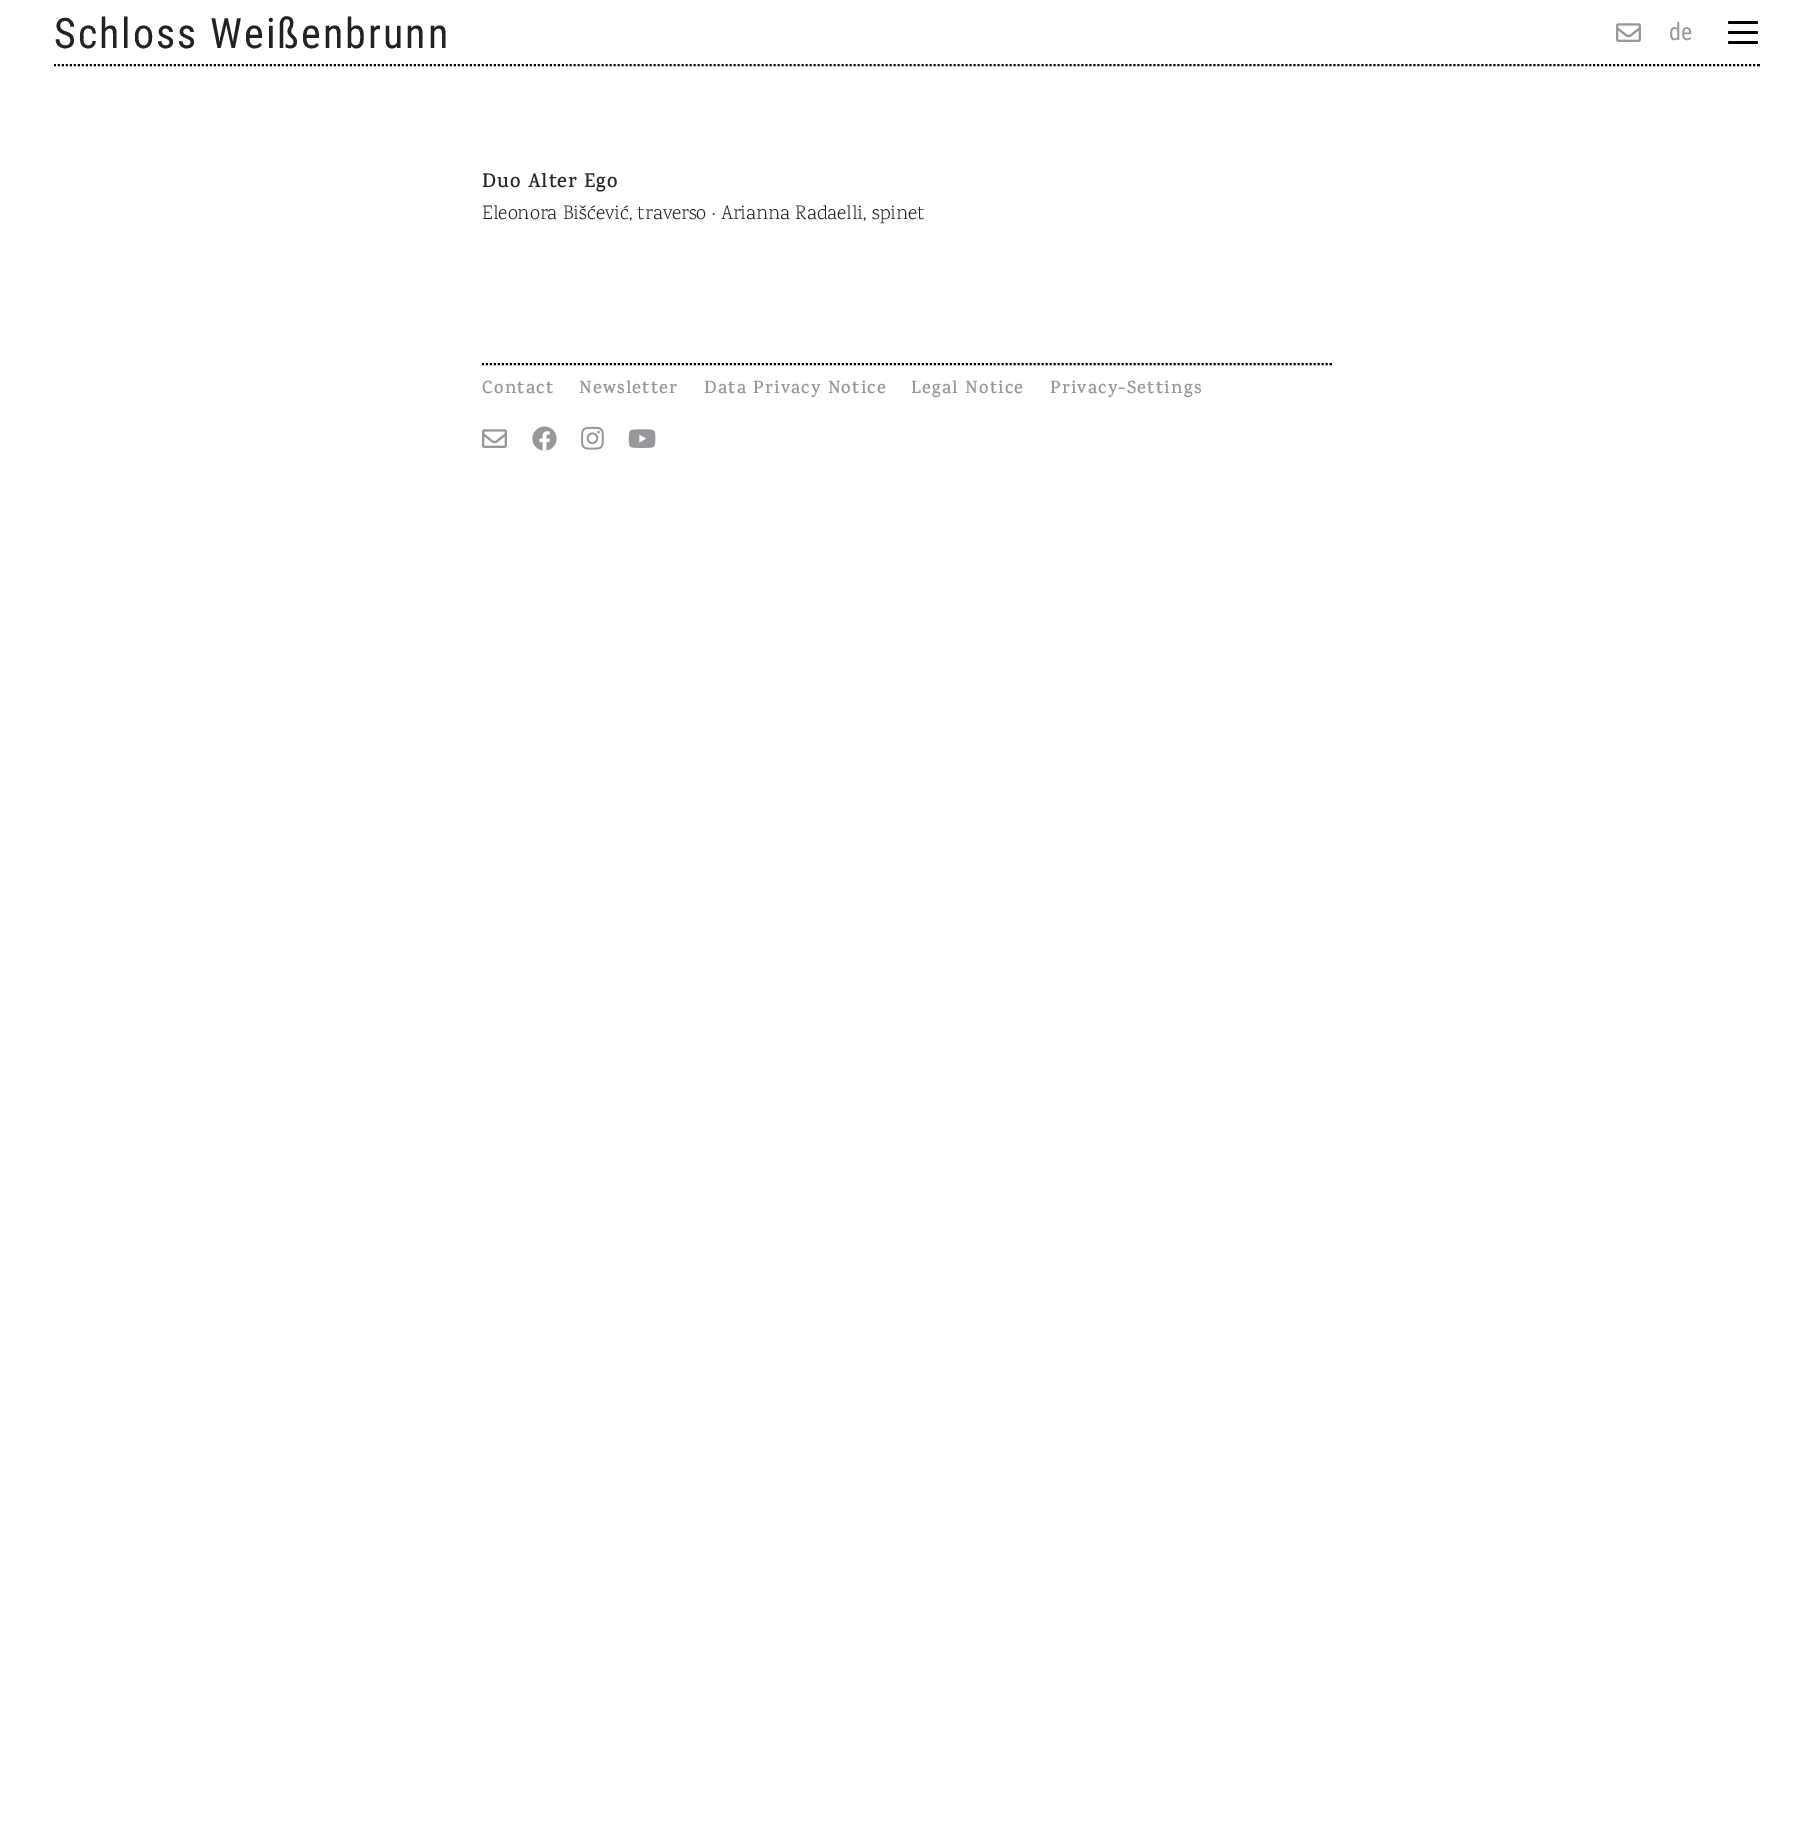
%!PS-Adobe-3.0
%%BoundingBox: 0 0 1814 1822
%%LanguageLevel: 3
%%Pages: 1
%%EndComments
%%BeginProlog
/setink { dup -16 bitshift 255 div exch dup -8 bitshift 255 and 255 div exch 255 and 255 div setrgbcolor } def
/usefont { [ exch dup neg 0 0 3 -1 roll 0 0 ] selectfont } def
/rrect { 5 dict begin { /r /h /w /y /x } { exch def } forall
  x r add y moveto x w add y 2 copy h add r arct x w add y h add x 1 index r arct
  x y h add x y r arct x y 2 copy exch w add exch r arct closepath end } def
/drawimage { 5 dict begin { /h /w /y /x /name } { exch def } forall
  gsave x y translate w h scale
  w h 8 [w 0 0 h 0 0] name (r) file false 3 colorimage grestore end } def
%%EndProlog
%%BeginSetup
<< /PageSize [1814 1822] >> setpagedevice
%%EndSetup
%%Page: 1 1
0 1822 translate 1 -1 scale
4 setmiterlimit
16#FFFFFF setink
0 0 1814 1822 rectfill
/RobotoCondensed-Regular 42 usefont
16#222222 setink
54 48 moveto 2 0 (Schloss Weißenbrunn) ashow
16#000000 setink
2 setlinewidth
[2 2] 0 setdash
54 65 moveto 1760 65 lineto stroke
(img1.raw) 1616 23 25 19 drawimage
/RobotoCondensed-Regular 24 usefont
16#99979C setink
1669 40 moveto (de) show
/Karma-SemiBold 20 usefont
16#24292E setink
482 187 moveto 1 0 (Duo Alter Ego) ashow
/Karma-Light 20 usefont
482 219 moveto (Eleonora Bišćević, traverso · Arianna Radaelli, spinet) show
16#000000 setink
1728 31 30 3 1.5 rrect fill
1728 21 30 3 1.5 rrect fill
1728 41 30 3 1.5 rrect fill
482 364 moveto 1332 364 lineto stroke
/Karma-SemiBold 18 usefont
16#99979C setink
482 393 moveto 1.25 0 (Contact) ashow
579 393 moveto 1.25 0 (Newsletter) ashow
704 393 moveto 1.25 0 (Data Privacy Notice) ashow
911 393 moveto 1.25 0 (Legal Notice) ashow
1050 393 moveto 1.25 0 (Privacy-Settings) ashow
(img1.raw) 482 429 25 19 drawimage
(img2.raw) 532 426 25 25 drawimage
(img3.raw) 581 426 23 24 drawimage
(img4.raw) 628 429 28 19 drawimage
showpage
%%EOF
